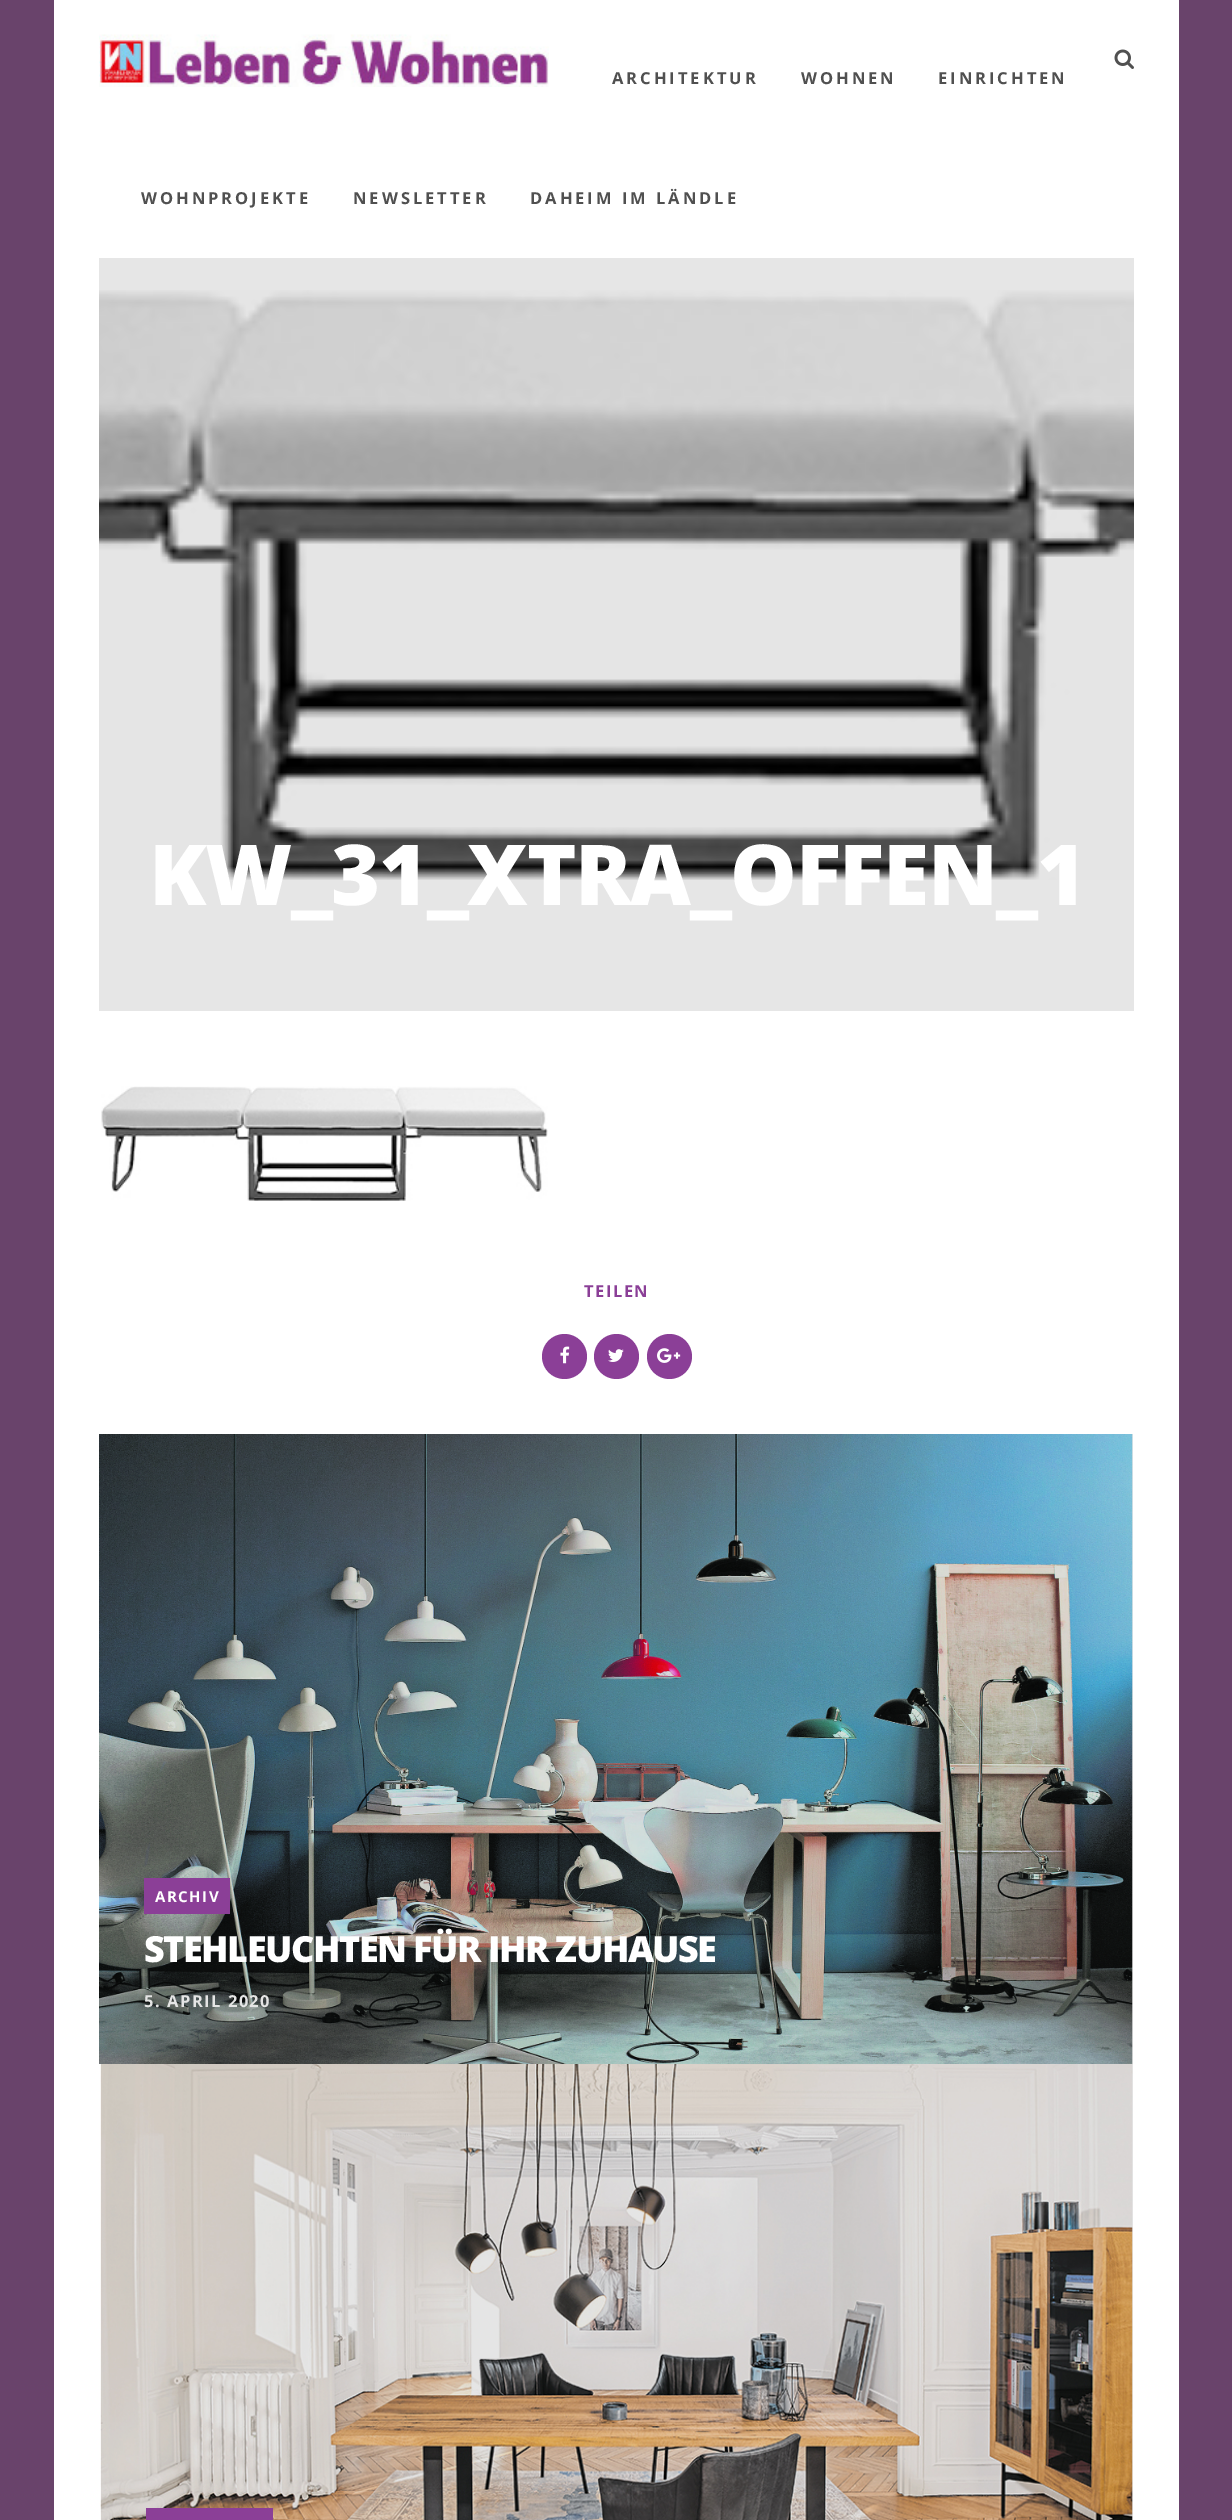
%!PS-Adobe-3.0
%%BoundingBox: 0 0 1232 2520
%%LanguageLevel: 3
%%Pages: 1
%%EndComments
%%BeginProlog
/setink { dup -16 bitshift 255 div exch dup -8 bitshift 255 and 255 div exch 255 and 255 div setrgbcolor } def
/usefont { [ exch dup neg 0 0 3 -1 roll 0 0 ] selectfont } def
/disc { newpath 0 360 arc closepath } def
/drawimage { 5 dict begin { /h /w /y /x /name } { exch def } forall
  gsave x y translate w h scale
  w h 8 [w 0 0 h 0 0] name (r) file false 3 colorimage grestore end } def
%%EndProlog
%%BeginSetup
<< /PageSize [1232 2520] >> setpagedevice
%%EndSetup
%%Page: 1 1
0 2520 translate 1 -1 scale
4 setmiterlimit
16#69436B setink
0 0 1232 2520 rectfill
16#FFFFFF setink
54 0 1125 2520 rectfill
(img1.raw) 99 34 450 53 drawimage
(img2.raw) 1114 49 20 20 drawimage
/OpenSans-Bold 16.5 usefont
16#505050 setink
612 84 moveto 3 0 (ARCHITEKTUR) ashow
801 84 moveto 3 0 (WOHNEN) ashow
938 84 moveto 3 0 (EINRICHTEN) ashow
141 204 moveto 3 0 (WOHNPROJEKTE) ashow
353 204 moveto 3 0 (NEWSLETTER) ashow
530 204 moveto 3 0 (DAHEIM IM LÄNDLE) ashow
16#E6E6E6 setink
1132 1434 1 1086 rectfill
99 258 1035 753 rectfill
(img3.raw) 99 290 1035 590 drawimage
/OpenSans-ExtraBold 84 usefont
16#FFFFFF setink
149 905 moveto -1.5 0 (KW_31_XTRA_OFFEN_1) ashow
(img4.raw) 101 1086 447 115 drawimage
/OpenSans-Bold 16.5 usefont
16#8B3F97 setink
584 1297 moveto 1.5 0 (TEILEN) ashow
564.5 1356.5 22.5 disc fill
(img5.raw) 560 1346 10 18 drawimage
616.5 1356.5 22.5 disc fill
(img6.raw) 608 1349 16 13 drawimage
669.5 1356.5 22.5 disc fill
(img7.raw) 657 1348 24 15 drawimage
(img8.raw) 99 1434 1034 630 drawimage
144 1878 86 36 rectfill
/OpenSans-Bold 15 usefont
16#FFFFFF setink
155 1902 moveto 1.5 0 (ARCHIV) ashow
/OpenSans-ExtraBold 36 usefont
144 1962 moveto -1.5 0 (STEHLEUCHTEN FÜR IHR ZUHAUSE) ashow
/OpenSans-Bold 16.5 usefont
16#E5E5E5 setink
144 2007 moveto 1.5 0 (5. APRIL 2020) ashow
(img9.raw) 100 2064 1033 456 drawimage
16#8B3F97 setink
146 2508 127 12 rectfill
showpage
%%EOF
